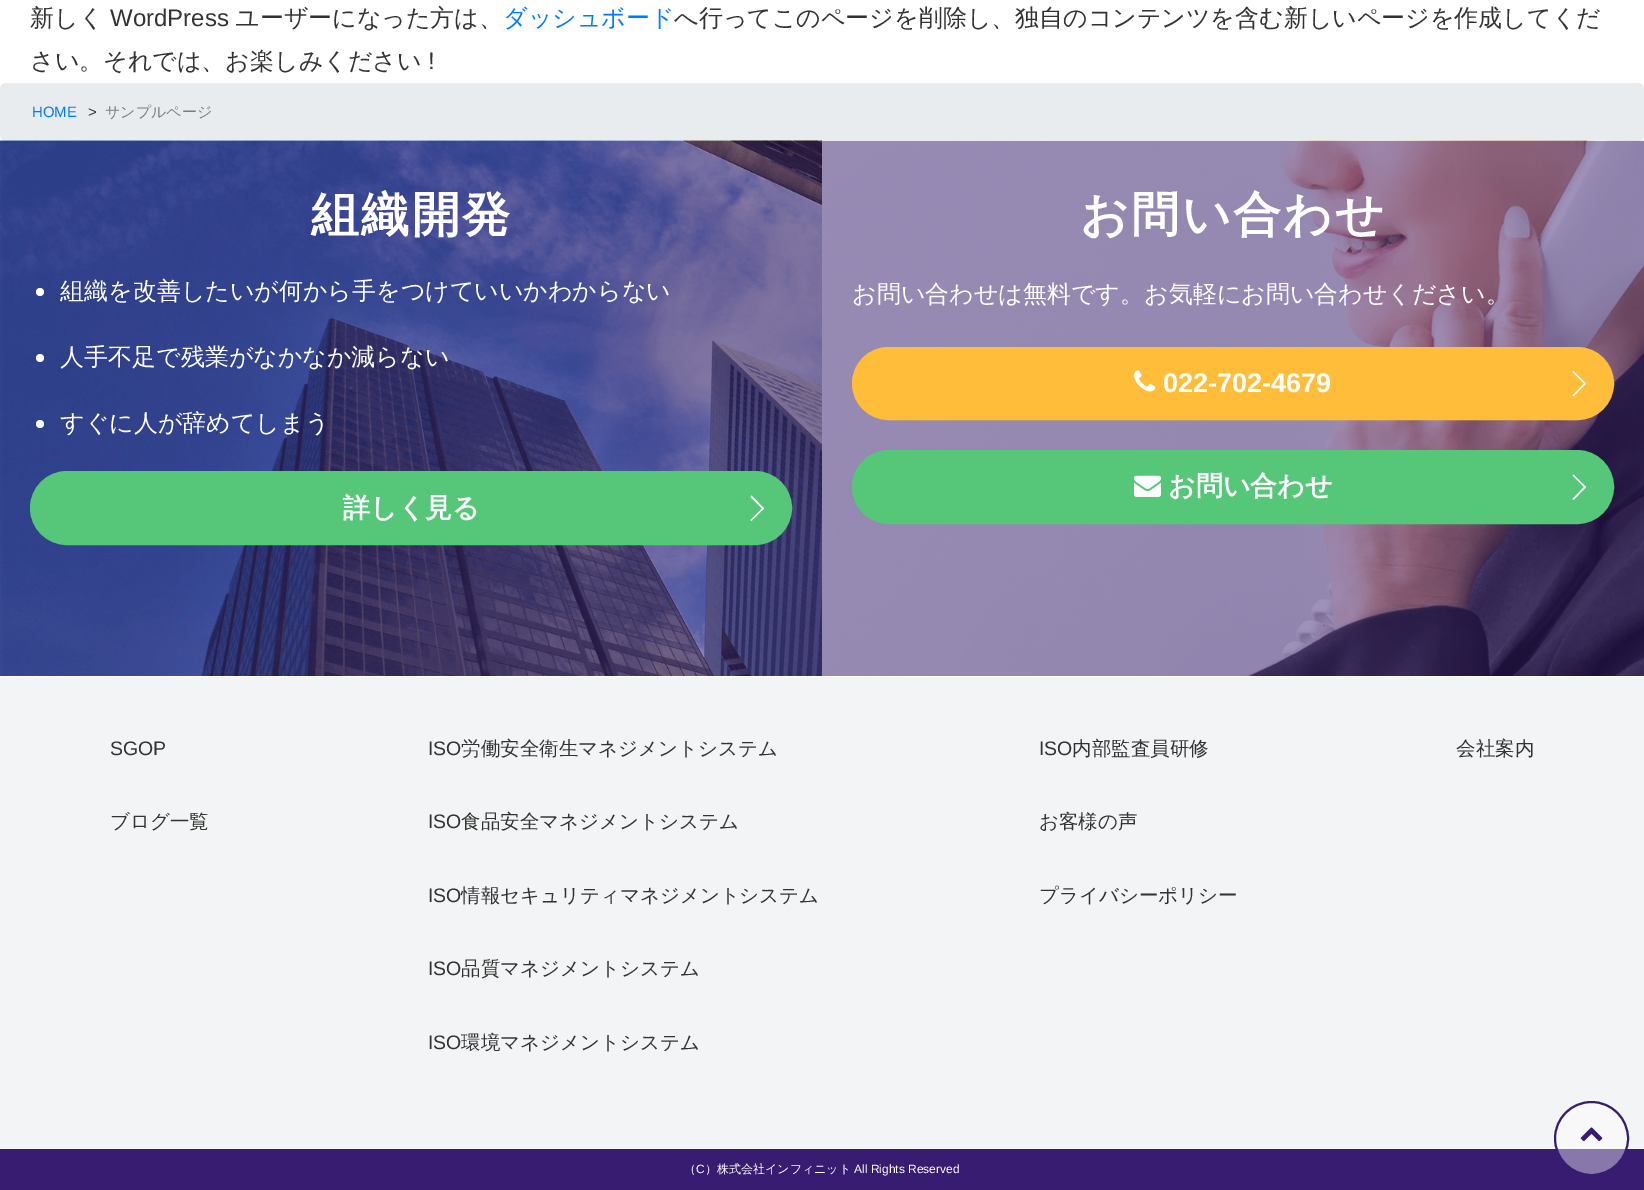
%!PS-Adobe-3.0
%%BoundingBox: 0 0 1644 1190
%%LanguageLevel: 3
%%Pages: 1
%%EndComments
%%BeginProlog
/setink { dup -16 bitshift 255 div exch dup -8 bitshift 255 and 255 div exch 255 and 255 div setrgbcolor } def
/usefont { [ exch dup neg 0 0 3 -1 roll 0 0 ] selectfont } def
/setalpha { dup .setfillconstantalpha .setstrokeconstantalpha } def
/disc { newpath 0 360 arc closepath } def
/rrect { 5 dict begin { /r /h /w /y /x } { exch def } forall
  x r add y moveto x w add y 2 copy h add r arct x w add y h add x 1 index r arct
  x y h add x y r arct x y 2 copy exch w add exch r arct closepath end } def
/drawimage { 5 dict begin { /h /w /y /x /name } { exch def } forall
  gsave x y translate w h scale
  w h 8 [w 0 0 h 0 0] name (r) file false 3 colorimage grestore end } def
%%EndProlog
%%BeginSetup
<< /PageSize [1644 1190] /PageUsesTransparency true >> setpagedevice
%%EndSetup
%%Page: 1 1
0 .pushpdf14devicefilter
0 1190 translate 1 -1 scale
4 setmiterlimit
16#FFFFFF setink
0 0 1644 1190 rectfill
/WenQuanYiZenHei-Medium 24 usefont
16#333333 setink
30 26 moveto (新しく) show
/LiberationSans-Regular 24 usefont
110 26 moveto (WordPress) show
/WenQuanYiZenHei-Medium 24 usefont
235 26 moveto (ユーザーになった方は、) show
16#007BFF setink
503 26 moveto (ダッシュボード) show
16#333333 setink
674 26 moveto (へ行ってこのページを削除し、独自のコンテンツを含む新しいページを作成してくだ) show
30 69 moveto (さい。それでは、お楽しみください) show
/LiberationSans-Regular 24 usefont
428 69 moveto (!) show
16#E9ECEF setink
0 83 1644 58 6 rrect fill
/LiberationSans-Regular 15 usefont
16#007BFF setink
32 117 moveto (HOME) show
16#333333 setink
88 117 moveto (>) show
/WenQuanYiZenHei-Medium 15 usefont
16#7B7B7B setink
105 117 moveto (サンプルページ) show
(img1.raw) 0 140 822 536 drawimage
/WenQuanYiZenHei-Bold 48 usefont
16#FFFFFF setink
311 231 moveto 2.25 0 (組織開発) ashow
40 292 4 disc fill
/WenQuanYiZenHei-Medium 24 usefont
60 299 moveto (組織を改善したいが何から手をつけていいかわからない) show
40 358 4 disc fill
60 365 moveto (人手不足で残業がなかなか減らない) show
40 424 4 disc fill
60 431 moveto (すぐに人が辞めてしまう) show
16#56C678 setink
31 472 760 72 36 rrect gsave fill grestore
2 setlinewidth
stroke
/WenQuanYiZenHei-Bold 27 usefont
16#FFFFFF setink
343 517 moveto (詳しく見る) show
751.5 495.5 moveto 764 508.5 lineto 763 509.5 lineto 750.5 497 lineto closepath fill
763 507.5 moveto 764 508.5 lineto 751.5 521 lineto 750.5 520 lineto closepath fill
(img2.raw) 822 140 822 536 drawimage
/WenQuanYiZenHei-Bold 48 usefont
1080 231 moveto 2.25 0 (お問い合わせ) ashow
/WenQuanYiZenHei-Medium 24 usefont
852 302 moveto (お問い合わせは無料です。お気軽にお問い合わせください。) show
16#FFBD39 setink
853 348 760 71 35.5 rrect gsave fill grestore
stroke
(img3.raw) 1134 370 22 22 drawimage
/LiberationSans-Bold 27 usefont
16#FFFFFF setink
1163 392 moveto (022-702-4679) show
1573.5 371 moveto 1586 383.5 lineto 1585 384.5 lineto 1572.5 372 lineto closepath fill
1585 382.5 moveto 1586 383.5 lineto 1573.5 396.5 lineto 1572.5 395.5 lineto closepath fill
16#56C678 setink
853 451 760 72 36 rrect gsave fill grestore
stroke
(img4.raw) 1134 475 27 22 drawimage
/WenQuanYiZenHei-Bold 27 usefont
16#FFFFFF setink
1168 495 moveto (お問い合わせ) show
1573.5 474.5 moveto 1586 487 lineto 1585 488 lineto 1572.5 475.5 lineto closepath fill
1585 486 moveto 1586 487 lineto 1573.5 500 lineto 1572.5 499 lineto closepath fill
16#F3F4F5 setink
0 677 1644 472 rectfill
/LiberationSans-Regular 19.5 usefont
16#333333 setink
110 755 moveto (SGOP) show
/WenQuanYiZenHei-Medium 19.5 usefont
110 828 moveto (ブログ一覧) show
/LiberationSans-Regular 19.5 usefont
428 755 moveto (ISO) show
/WenQuanYiZenHei-Medium 19.5 usefont
461 755 moveto (労働安全衛生マネジメントシステム) show
/LiberationSans-Regular 19.5 usefont
428 828 moveto (ISO) show
/WenQuanYiZenHei-Medium 19.5 usefont
461 828 moveto (食品安全マネジメントシステム) show
/LiberationSans-Regular 19.5 usefont
428 902 moveto (ISO) show
/WenQuanYiZenHei-Medium 19.5 usefont
461 902 moveto (情報セキュリティマネジメントシステム) show
/LiberationSans-Regular 19.5 usefont
428 975 moveto (ISO) show
/WenQuanYiZenHei-Medium 19.5 usefont
461 975 moveto (品質マネジメントシステム) show
/LiberationSans-Regular 19.5 usefont
428 1049 moveto (ISO) show
/WenQuanYiZenHei-Medium 19.5 usefont
461 1049 moveto (環境マネジメントシステム) show
/LiberationSans-Regular 19.5 usefont
1039 755 moveto (ISO) show
/WenQuanYiZenHei-Medium 19.5 usefont
[
    [(内部監査員研修) 1072 755]
    [(お客様の声) 1039 828]
    [(プライバシーポリシー) 1039 902]
    [(会社案内) 1456 755]
] { aload pop moveto show } forall
16#381C72 setink
0 1149 1644 41 rectfill
/WenQuanYiZenHei-Medium 12 usefont
16#FFFFFF setink
684 1173 moveto (（) show
/LiberationSans-Regular 12 usefont
696 1173 moveto (C) show
/WenQuanYiZenHei-Medium 12 usefont
705 1173 moveto (）株式会社インフィニット) show
/LiberationSans-Regular 12 usefont
854 1173 moveto (All Rights Reserved) show
0.4 setalpha
1591.5 1138.5 36.5 disc fill
1 setalpha
16#381C72 setink
1591.5 1138.5 36.5 disc stroke
(img5.raw) 1580 1127 23 15 drawimage
.poppdf14devicefilter showpage
%%EOF
